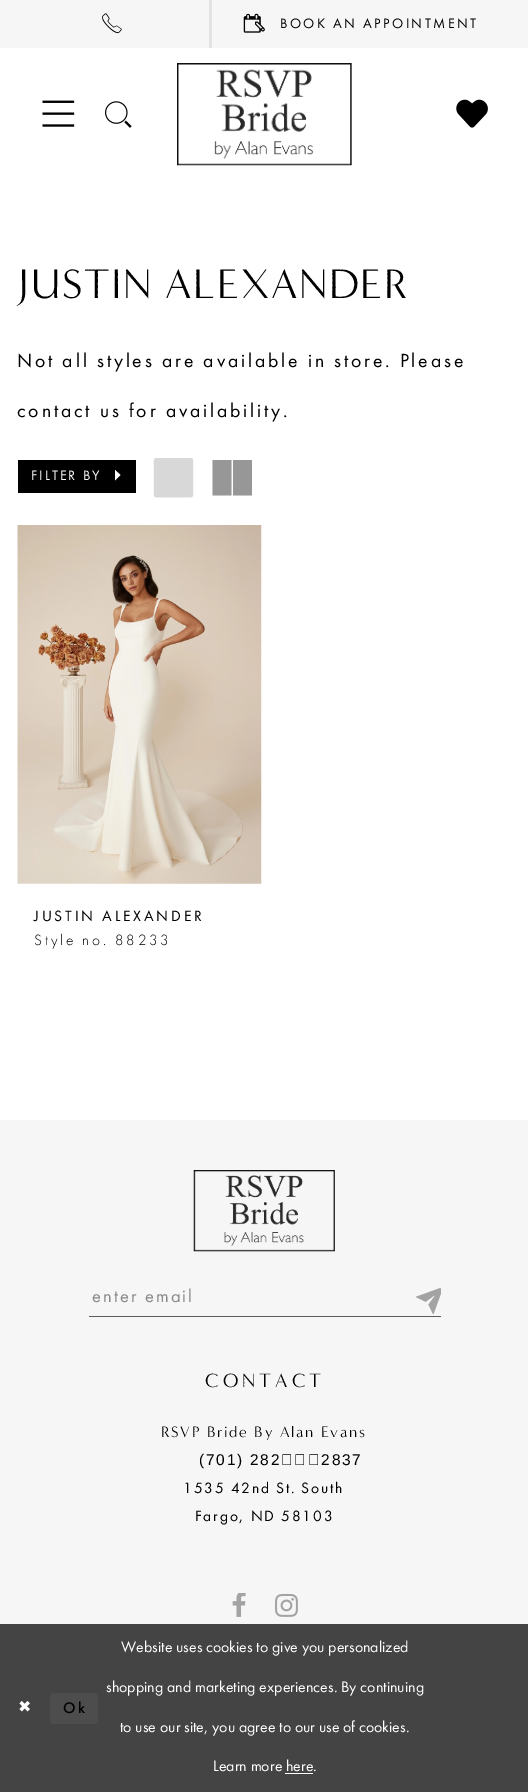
%!PS-Adobe-3.0
%%BoundingBox: 0 0 528 1792
%%LanguageLevel: 3
%%Pages: 1
%%EndComments
%%BeginProlog
/setink { dup -16 bitshift 255 div exch dup -8 bitshift 255 and 255 div exch 255 and 255 div setrgbcolor } def
/usefont { [ exch dup neg 0 0 3 -1 roll 0 0 ] selectfont } def
/rrect { 5 dict begin { /r /h /w /y /x } { exch def } forall
  x r add y moveto x w add y 2 copy h add r arct x w add y h add x 1 index r arct
  x y h add x y r arct x y 2 copy exch w add exch r arct closepath end } def
/drawimage { 5 dict begin { /h /w /y /x /name } { exch def } forall
  gsave x y translate w h scale
  w h 8 [w 0 0 h 0 0] name (r) file false 3 colorimage grestore end } def
%%EndProlog
%%BeginSetup
<< /PageSize [528 1792] >> setpagedevice
%%EndSetup
%%Page: 1 1
0 1792 translate 1 -1 scale
4 setmiterlimit
16#FFFFFF setink
0 0 528 1792 rectfill
16#F6F6F6 setink
0 0 528 48 rectfill
(img1.raw) 102 13 20 21 drawimage
16#E3E3E3 setink
209 0 3 48 rectfill
(img2.raw) 243 13 22 20 drawimage
/FuturaPT-Regular 14.1 usefont
16#000000 setink
280 28 moveto 2.4 0 (BOOK AN APPOINTMENT) ashow
(img3.raw) 42 100 33 27 drawimage
(img4.raw) 105 101 27 27 drawimage
(img5.raw) 177 63 175 103 drawimage
(img6.raw) 456 99 32 29 drawimage
/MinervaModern-Regular 42.25 usefont
17 298 moveto 1.6 0 (JUSTIN ALEXANDER) ashow
/FuturaPT-Regular 19.75 usefont
17 367 moveto 2.8 0 (Not all styles are available in store. Please) ashow
17 417 moveto 2.8 0 (contact us for availability.) ashow
18 460 118 33 rectfill
/FuturaPT-Regular 14.1 usefont
16#FFFFFF setink
31 480 moveto 2 0 (FILTER BY) ashow
115 470 moveto 120.5 475 lineto 115 480.5 lineto closepath fill
(img7.raw) 153 458 41 40 drawimage
16#979797 setink
212.5 460 moveto 231.5 460 lineto 231.5 495.5 lineto 212.5 495.5 lineto closepath 233 460 moveto 252 460 lineto 252 495.5 lineto 233 495.5 lineto closepath fill
(img8.raw) 17 525 245 359 drawimage
/FuturaPT-Regular 15.5 usefont
16#000000 setink
34 921 moveto 2.8 0 (JUSTIN ALEXANDER) ashow
/FuturaPT-Light 15.5 usefont
34 945 moveto 2.8 0 (Style no. 88233) ashow
16#F6F6F6 setink
0 1120 528 504 rectfill
(img9.raw) 193 1170 142 82 drawimage
16#5B5B5B setink
89 1316 352 1 rectfill
/FuturaPT-Regular 18.5 usefont
16#898989 setink
92 1302 moveto 2.1 0 (enter email) ashow
(img10.raw) 416 1288 25 26 drawimage
/MinervaModern-Regular 19.75 usefont
16#000000 setink
205 1387 moveto 4 0 (CONTACT) ashow
/MinervaModern-Regular 15.5 usefont
161 1437 moveto 1.75 0 (RSVP Bride By Alan Evans) ashow
/LiberationSans-Regular 15.5 usefont
199 1465 moveto 1.75 0 (\(701\) 282‑2837) ashow
/FuturaPT-Regular 15.5 usefont
183 1493 moveto 1.75 0 (1535 42nd St. South) ashow
195 1521 moveto 1.75 0 (Fargo, ND 58103) ashow
(img11.raw) 232 1593 14 24 drawimage
(img12.raw) 275 1593 23 24 drawimage
16#444444 setink
0 1624 528 168 rectfill
/DejaVuSans-Regular 15.9 usefont
16#FFFFFF setink
18 1712 moveto 2 0 (✖) ashow
16#4D4D4D setink
50 1693 48 31 4 rrect fill
/FuturaPT-Medium 15.9 usefont
16#000000 setink
63 1713 moveto 2 0 (Ok) ashow
/FuturaPT-Regular 15.9 usefont
16#FFFFFF setink
[
    [(Website uses cookies to give you personalized) 121 1652]
    [(shopping and marketing experiences. By continuing) 106 1692]
    [(to use our site, you agree to our use of cookies.) 120 1732]
    [(Learn more here.) 213 1771]
] { aload pop moveto show } forall
285 1773 28 1 rectfill
showpage
%%EOF
